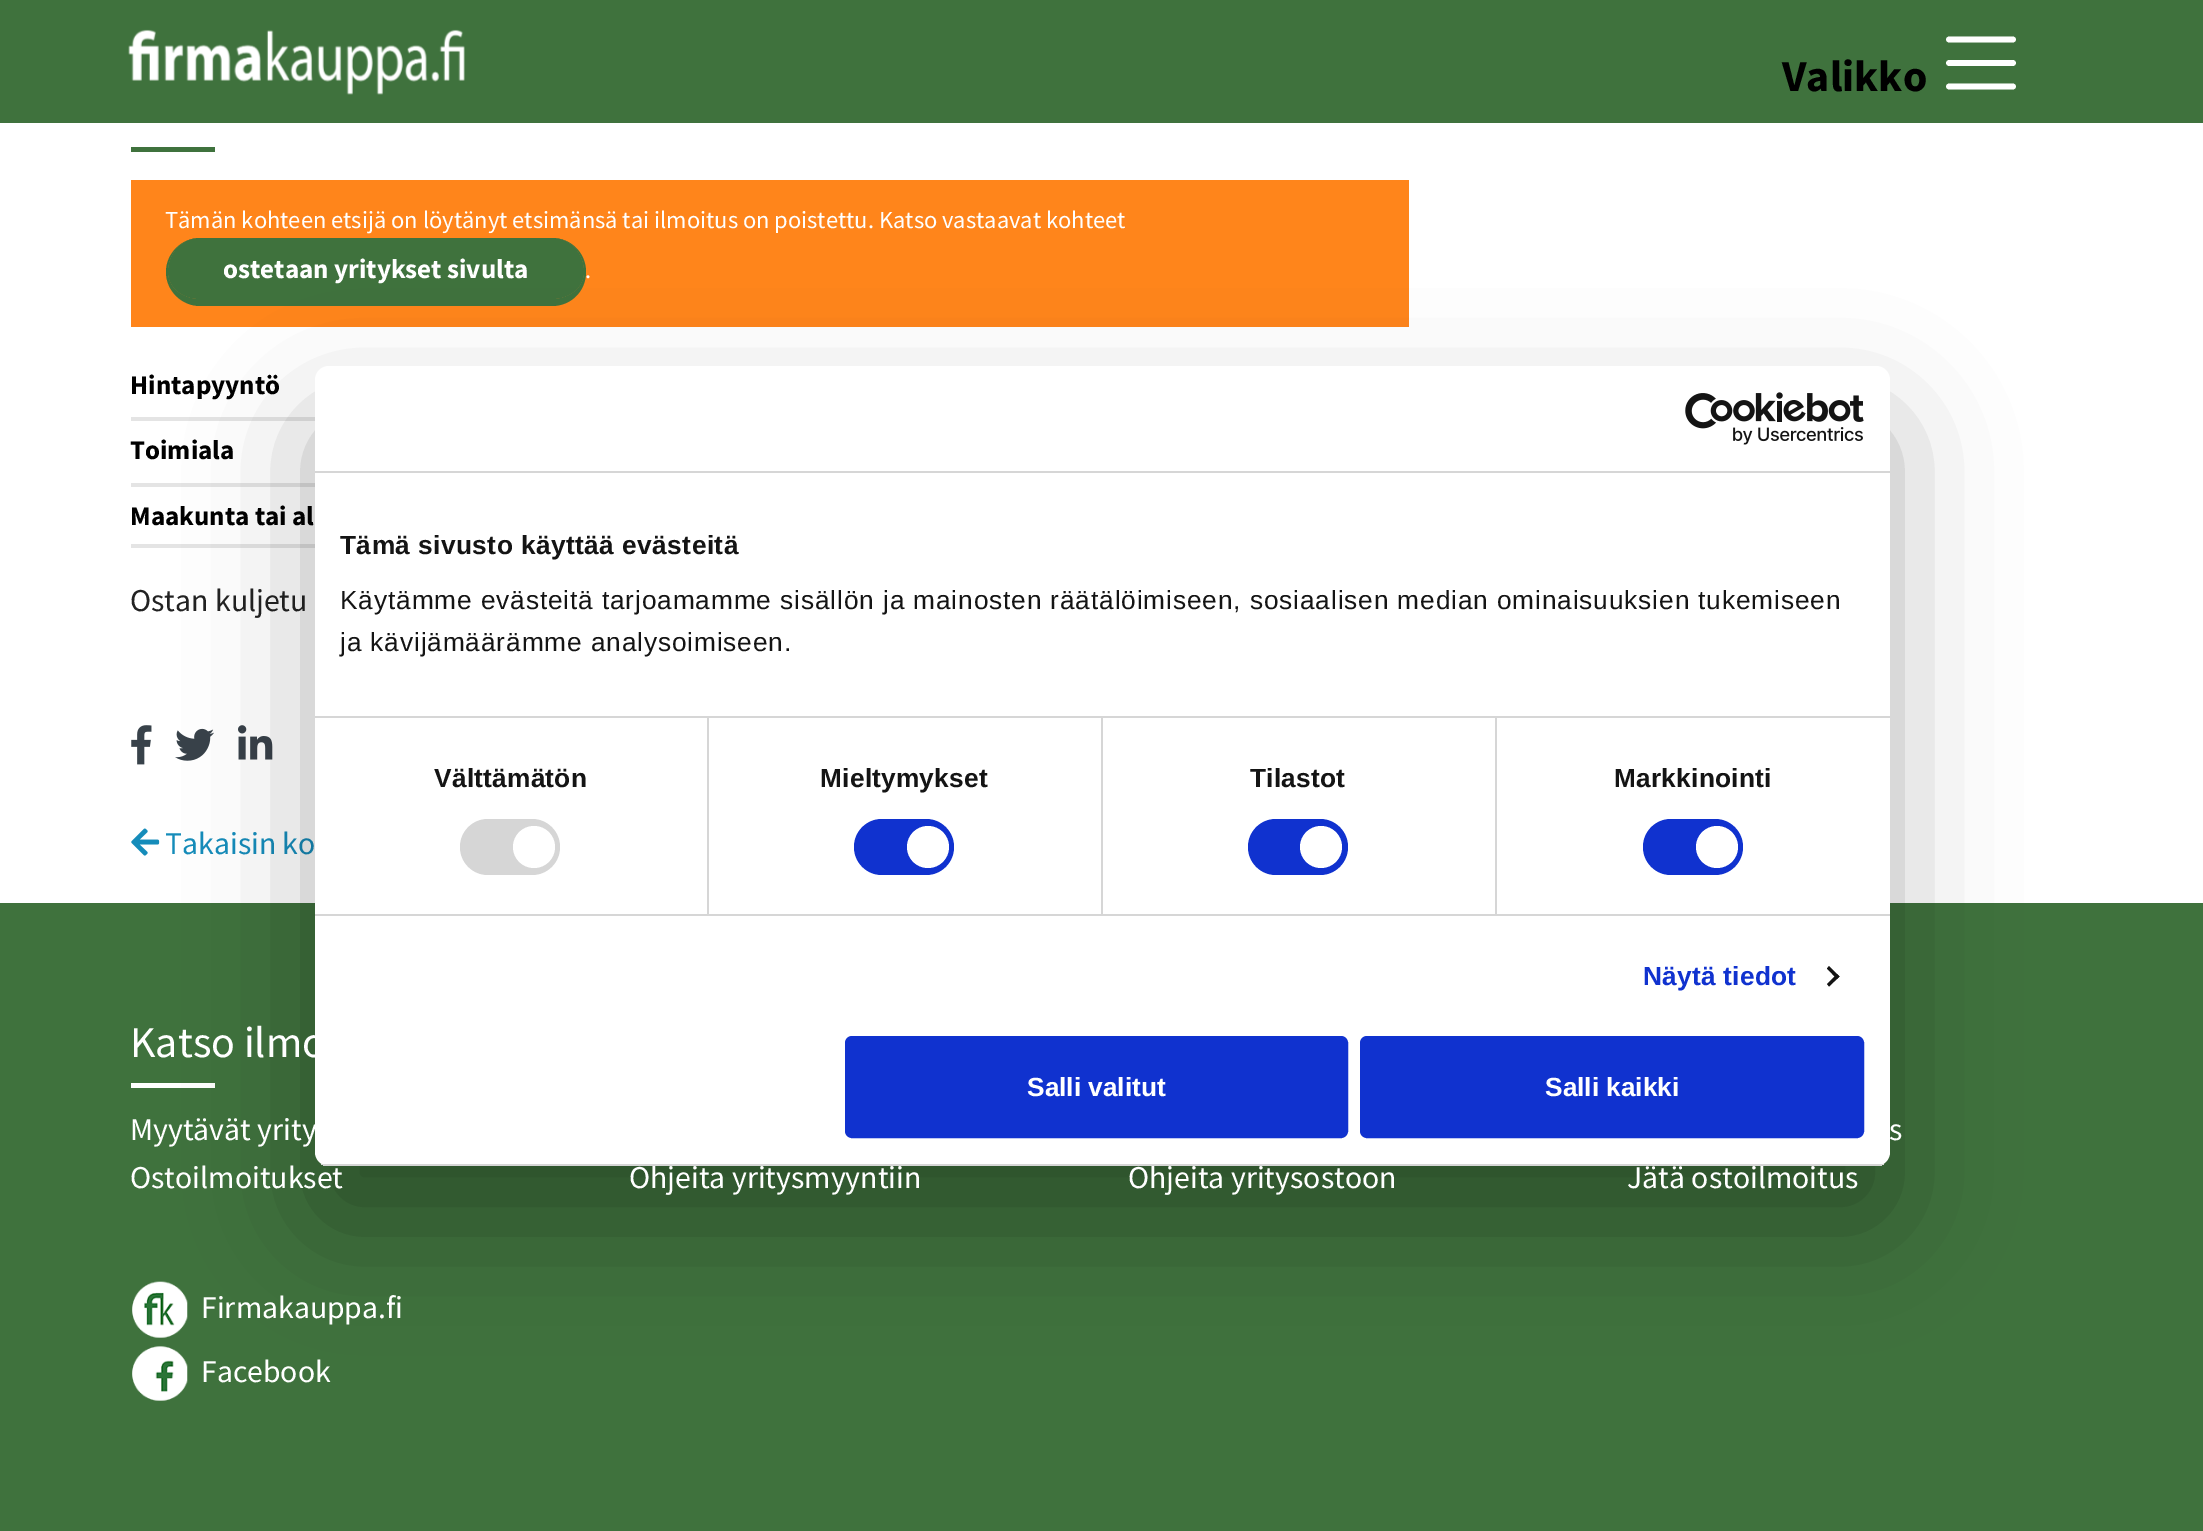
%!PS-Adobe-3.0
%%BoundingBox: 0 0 2203 1531
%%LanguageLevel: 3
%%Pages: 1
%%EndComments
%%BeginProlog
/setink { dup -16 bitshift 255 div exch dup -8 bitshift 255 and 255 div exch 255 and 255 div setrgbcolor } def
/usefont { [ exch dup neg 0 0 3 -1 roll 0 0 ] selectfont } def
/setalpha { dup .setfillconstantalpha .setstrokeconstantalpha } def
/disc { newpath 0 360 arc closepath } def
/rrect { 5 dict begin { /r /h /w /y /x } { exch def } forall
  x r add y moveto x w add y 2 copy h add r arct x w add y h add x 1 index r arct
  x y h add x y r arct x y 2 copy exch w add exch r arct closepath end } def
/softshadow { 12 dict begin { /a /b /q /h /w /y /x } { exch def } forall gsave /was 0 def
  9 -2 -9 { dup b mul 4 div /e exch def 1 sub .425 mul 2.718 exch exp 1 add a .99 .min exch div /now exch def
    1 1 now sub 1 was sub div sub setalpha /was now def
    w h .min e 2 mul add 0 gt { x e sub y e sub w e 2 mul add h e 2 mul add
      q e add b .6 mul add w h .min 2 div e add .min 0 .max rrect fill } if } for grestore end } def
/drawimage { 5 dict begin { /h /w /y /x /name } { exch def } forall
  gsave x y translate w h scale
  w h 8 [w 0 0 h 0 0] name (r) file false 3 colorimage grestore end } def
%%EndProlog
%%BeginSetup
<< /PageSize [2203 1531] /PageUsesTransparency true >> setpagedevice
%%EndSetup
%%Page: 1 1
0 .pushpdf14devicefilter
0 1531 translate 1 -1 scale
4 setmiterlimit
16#FFFFFF setink
0 0 2203 1531 rectfill
[
    [2 0 2200 119 16#3F723D]
    [2202 0 1 123 16#3F723D]
    [0 119 2203 4 16#3F723D]
    [0 0 2 123 16#3F723D]
] { aload pop setink rectfill } forall
(img1.raw) 128 29 337 66 drawimage
/SourceSansPro-Bold 44 usefont
16#000000 setink
1782 91 moveto (Valikko) show
16#FFFFFF setink
5.8 setlinewidth
1 setlinecap
1949 39.5 moveto 2013 39.5 lineto 1949 63 moveto 2013 63 lineto 1949 86.5 moveto 2013 86.5 lineto stroke
16#3F723D setink
131 147 84 5 rectfill
16#FF851B setink
131 180 1278 147 rectfill
/SourceSansPro-Regular 24.5 usefont
16#FFFFFF setink
165 228 moveto (Tämän kohteen etsijä on löytänyt etsimänsä tai ilmoitus on poistettu. Katso vastaavat kohteet) show
16#3F723D setink
200 238 moveto 552 238 lineto 570 238 584 253 584 272 curveto 584 287 570 299 552 299 curveto 200 299 lineto 182 299 168 287 168 272 curveto 168 253 182 238 200 238 curveto closepath fill
200 238 moveto 552 238 lineto 571 238 586 253 586 272 curveto 586 291 571 306 552 306 curveto 200 306 lineto 182 306 166 291 166 272 curveto 166 253 182 238 200 238 curveto closepath 200 238 moveto 552 238 lineto 570 238 584 253 584 272 curveto 584 287 570 299 552 299 curveto 200 299 lineto 182 299 168 287 168 272 curveto 168 253 182 238 200 238 curveto closepath eofill
/SourceSansPro-Bold 27 usefont
16#FFFFFF setink
223 278 moveto (ostetaan yritykset sivulta) show
/SourceSansPro-Regular 24.5 usefont
585 278 moveto (.) show
16#E4E4E4 setink
131 417 184 4 rectfill
/SourceSansPro-Bold 27 usefont
16#000000 setink
130 394 moveto (Hintapyyntö) show
16#E4E4E4 setink
131 483 184 4 rectfill
16#000000 setink
130 459 moveto (Toimiala) show
16#E4E4E4 setink
131 544 184 4 rectfill
16#000000 setink
130 525 moveto (Maakunta tai al) show
/SourceSansPro-Regular 31.75 usefont
16#222222 setink
130 611 moveto (Ostan kuljetu) show
(img2.raw) 131 725 21 40 drawimage
(img3.raw) 175 728 39 33 drawimage
(img4.raw) 238 725 35 35 drawimage
(img5.raw) 131 828 29 28 drawimage
16#158CBA setink
165 854 moveto (Takaisin ko) show
16#3F723D setink
0 903 2203 628 rectfill
16#FFFFFF setink
131 1083 84 5 rectfill
(img7.raw) 132 1281 56 57 drawimage
(img8.raw) 132 1346 56 55 drawimage
16#000000 setink
315 422 1575 800 14 59.5 0.3 softshadow
16#FFFFFF setink
315 366 1575 800 14 rrect fill
16#D6D6D6 setink
315 471 1575 2 rectfill
(img6.raw) 1685 392 179 53 drawimage
315 716 1575 2 rectfill
/LiberationSans-Bold 26.25 usefont
16#141414 setink
340 554 moveto 0.45 0 (Tämä sivusto käyttää evästeitä) ashow
/LiberationSans-Regular 26.25 usefont
340 609 moveto 0.88 0 (Käytämme evästeitä tarjoamamme sisällön ja mainosten räätälöimiseen, sosiaalisen median ominaisuuksien tukemiseen) ashow
340 651 moveto 0.88 0 (ja kävijämäärämme analysoimiseen.) ashow
16#D6D6D6 setink
315 914 1575 2 rectfill
707 718 2 196 rectfill
/LiberationSans-Bold 26.25 usefont
16#141414 setink
434 787 moveto 0.25 0 (Välttämätön) ashow
16#D6D6D6 setink
460 819 100 56 28 rrect fill
16#FFFFFF setink
534 847 21 disc fill
16#D6D6D6 setink
1101 718 2 196 rectfill
16#141414 setink
820 787 moveto 0.25 0 (Mieltymykset) ashow
16#1032CF setink
854 819 100 56 28 rrect fill
16#FFFFFF setink
928 847 21 disc fill
16#D6D6D6 setink
1495 718 2 196 rectfill
16#141414 setink
1250 787 moveto 0.25 0 (Tilastot) ashow
16#1032CF setink
1248 819 100 56 28 rrect fill
16#FFFFFF setink
1321 847 21 disc fill
16#141414 setink
1614 787 moveto 0.25 0 (Markkinointi) ashow
16#1032CF setink
1643 819 100 56 28 rrect fill
16#FFFFFF setink
1717 847 21 disc fill
16#1032CF setink
1643 985 moveto 0.25 0 (Näytä tiedot) ashow
16#141414 setink
1829 966 moveto 1839.5 976.5 lineto 1837 979 lineto 1827 968.5 lineto closepath fill
1837 974 moveto 1839.5 976.5 lineto 1829 986.5 lineto 1827 984 lineto closepath fill
/SourceSansPro-Regular 31.75 usefont
16#FFFFFF setink
[
    [(Ostoilmoitukset) 130 1188]
    [(Ohjeita yritysmyyntiin) 629 1188]
    [(Ohjeita yritysostoon) 1128 1188]
    [(Jätä ostoilmoitus) 1627 1188]
] { aload pop moveto show } forall
gsave
315 366 1575 800 14 rrect clip newpath
16#D6D6D6 setink
315 1164 1575 2 rectfill
grestore
16#1032CF setink
847 1038 499 98 5 rrect gsave fill grestore
4 setlinewidth
0 setlinecap
stroke
/LiberationSans-Bold 26.25 usefont
16#FFFFFF setink
1027 1096 moveto (Salli valitut) show
16#1032CF setink
1362 1038 500 98 5 rrect gsave fill grestore
stroke
16#FFFFFF setink
1545 1096 moveto (Salli kaikki) show
/SourceSansPro-Regular 44 usefont
130 1057 moveto (Katso ilmo) show
/SourceSansPro-Regular 31.75 usefont
[
    [(Myytävät yrity) 130 1140]
    [(s) 1889 1140]
    [(Firmakauppa.fi) 201 1318]
    [(Facebook) 201 1382]
] { aload pop moveto show } forall
.poppdf14devicefilter showpage
%%EOF
